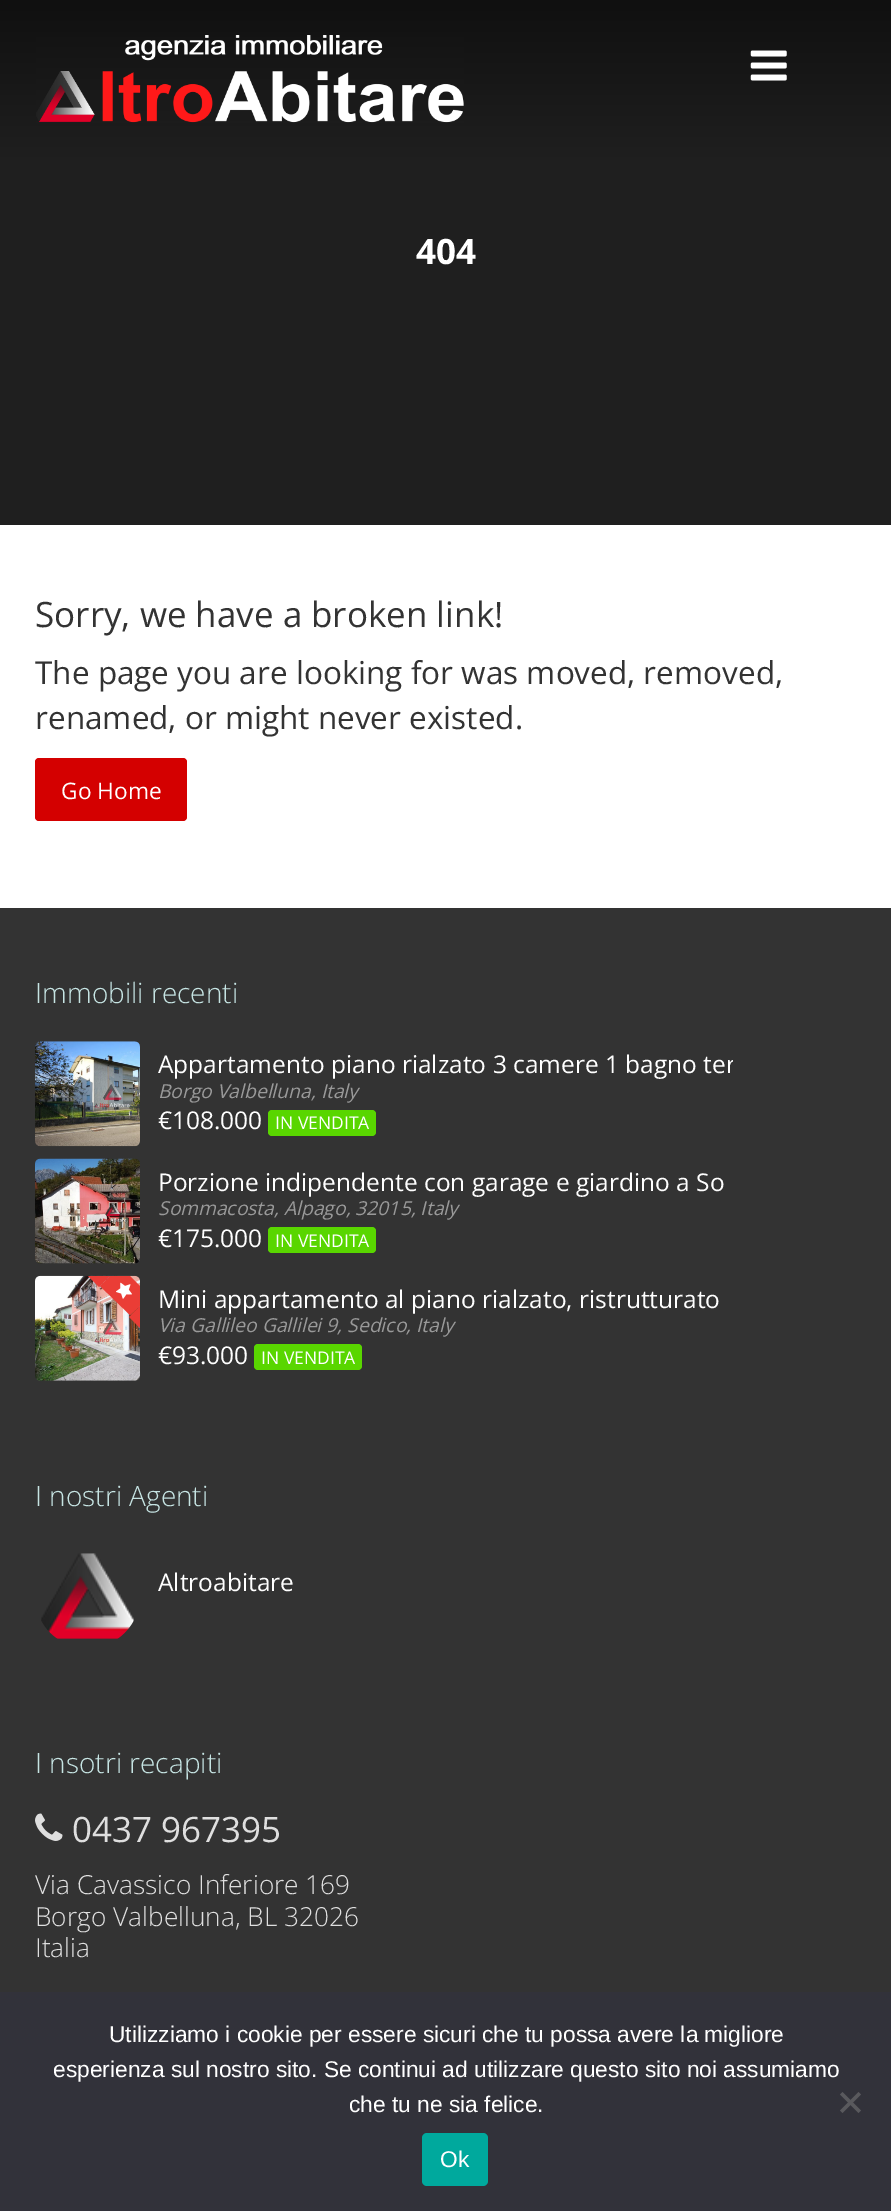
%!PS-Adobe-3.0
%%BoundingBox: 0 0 891 2211
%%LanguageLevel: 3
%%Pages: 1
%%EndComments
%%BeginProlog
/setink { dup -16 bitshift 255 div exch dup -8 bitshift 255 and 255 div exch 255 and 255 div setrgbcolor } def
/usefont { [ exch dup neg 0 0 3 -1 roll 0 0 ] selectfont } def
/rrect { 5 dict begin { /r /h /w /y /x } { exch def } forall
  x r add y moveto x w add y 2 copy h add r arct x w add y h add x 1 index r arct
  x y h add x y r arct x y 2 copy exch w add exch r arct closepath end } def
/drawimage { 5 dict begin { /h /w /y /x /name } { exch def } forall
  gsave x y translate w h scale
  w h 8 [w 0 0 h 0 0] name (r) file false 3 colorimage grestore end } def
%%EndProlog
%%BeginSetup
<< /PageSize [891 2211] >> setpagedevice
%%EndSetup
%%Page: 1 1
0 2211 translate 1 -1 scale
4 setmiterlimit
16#FFFFFF setink
0 0 891 2211 rectfill
gsave 0 0 moveto 891 0 lineto 891 158 lineto 0 158 lineto closepath clip newpath
<< /ShadingType 2 /ColorSpace /DeviceRGB /Coords [446 0 446 158] /Extend [true true] /Function << /FunctionType 2 /Domain [0 1] /C0 [0.063 0.063 0.063] /C1 [0.122 0.122 0.122] /N 1 >> >> shfill grestore
(img1.raw) 36 35 428 88 drawimage
(img2.raw) 750 50 37 31 drawimage
16#1F1F1F setink
0 158 891 367 rectfill
/OpenSans-Bold 35 usefont
16#FFFFFF setink
416 264 moveto (404) show
/OpenSans-Regular 35 usefont
16#333333 setink
35 627 moveto (Sorry, we have a broken link!) show
/OpenSans-Regular 31.5 usefont
35 684 moveto (The page you are looking for was moved, removed,) show
35 729 moveto (renamed, or might never existed.) show
16#D40000 setink
35 758 152 63 4 rrect fill
/OpenSans-Regular 22.75 usefont
16#FFFFFF setink
61 799 moveto (Go Home) show
16#333333 setink
0 908 891 1084 rectfill
/OpenSans-Light 28 usefont
16#C6E4E3 setink
35 1003 moveto (Immobili recenti) show
(img3.raw) 35 1041 105 106 drawimage
gsave
158 1041 575 98 rectclip
/OpenSans-Regular 24.5 usefont
16#FFFFFF setink
158 1073 moveto (Appartamento piano rialzato 3 camere 1 bagno ter) show
grestore
/OpenSans-Italic 19.25 usefont
16#999999 setink
158 1098 moveto (Borgo Valbelluna, Italy) show
/OpenSans-Regular 24.5 usefont
16#FFFFFF setink
158 1129 moveto (€108.000) show
16#59D600 setink
268 1110 108 26 4 rrect fill
/OpenSans-Regular 17.5 usefont
16#FFFFFF setink
275 1129 moveto (IN VENDITA) show
(img4.raw) 35 1158 105 106 drawimage
/OpenSans-Regular 24.5 usefont
158 1191 moveto (Porzione indipendente con garage e giardino a So) show
/OpenSans-Italic 19.25 usefont
16#999999 setink
158 1215 moveto (Sommacosta, Alpago, 32015, Italy) show
/OpenSans-Regular 24.5 usefont
16#FFFFFF setink
158 1247 moveto (€175.000) show
16#59D600 setink
268 1227 108 26 4 rrect fill
/OpenSans-Regular 17.5 usefont
16#FFFFFF setink
275 1247 moveto (IN VENDITA) show
(img5.raw) 35 1275 105 106 drawimage
16#EA3C36 setink
99 1287 moveto 110 1276 lineto 88 1276 lineto closepath fill
16#EA3D36 setink
140 1306 moveto 130 1315 lineto 100 1286 lineto 110 1276 lineto 130 1276 lineto 140 1286 lineto closepath fill
(img6.raw) 116 1282 16 17 drawimage
16#EA3C36 setink
129 1317 moveto 140 1306 lineto 140 1328 lineto closepath fill
/OpenSans-Regular 24.5 usefont
16#FFFFFF setink
158 1308 moveto (Mini appartamento al piano rialzato, ristrutturato) show
/OpenSans-Italic 19.25 usefont
16#999999 setink
158 1332 moveto (Via Gallileo Gallilei 9, Sedico, Italy) show
/OpenSans-Regular 24.5 usefont
16#FFFFFF setink
158 1364 moveto (€93.000) show
16#59D600 setink
254 1344 108 26 4 rrect fill
/OpenSans-Regular 17.5 usefont
16#FFFFFF setink
261 1364 moveto (IN VENDITA) show
/OpenSans-Light 28 usefont
16#C6E4E3 setink
35 1506 moveto (I nostri Agenti) show
(img7.raw) 41 1553 93 86 drawimage
/OpenSans-Regular 24.5 usefont
16#FFFFFF setink
158 1591 moveto (Altroabitare) show
/OpenSans-Light 28 usefont
16#C6E4E3 setink
35 1773 moveto (I nsotri recapiti) show
(img8.raw) 35 1813 28 28 drawimage
/OpenSans-Regular 35 usefont
16#DFDFDF setink
72 1842 moveto (0437 967395) show
/OpenSans-Light 26.25 usefont
[
    [(Via Cavassico Inferiore 169) 35 1894]
    [(Borgo Valbelluna, BL 32026) 35 1926]
    [(Italia) 35 1957]
] { aload pop moveto show } forall
16#32323A setink
0 1992 891 219 rectfill
/LiberationSans-Regular 22.75 usefont
16#FFFFFF setink
[
    [(Utilizziamo i cookie per essere sicuri che tu possa avere la migliore) 109 2042]
    [(esperienza sul nostro sito. Se continui ad utilizzare questo sito noi assumiamo) 53 2077]
    [(che tu ne sia felice.) 349 2112]
] { aload pop moveto show } forall
16#59595D setink
858.5 2092 moveto 861 2094.5 lineto 842.5 2113 lineto 840 2110.5 lineto closepath fill
840 2094.5 moveto 842.5 2092 lineto 861 2110.5 lineto 858.5 2113 lineto closepath fill
16#00A99D setink
422 2133 66 53 5 rrect fill
16#FFFFFF setink
440 2167 moveto (Ok) show
showpage
%%EOF
